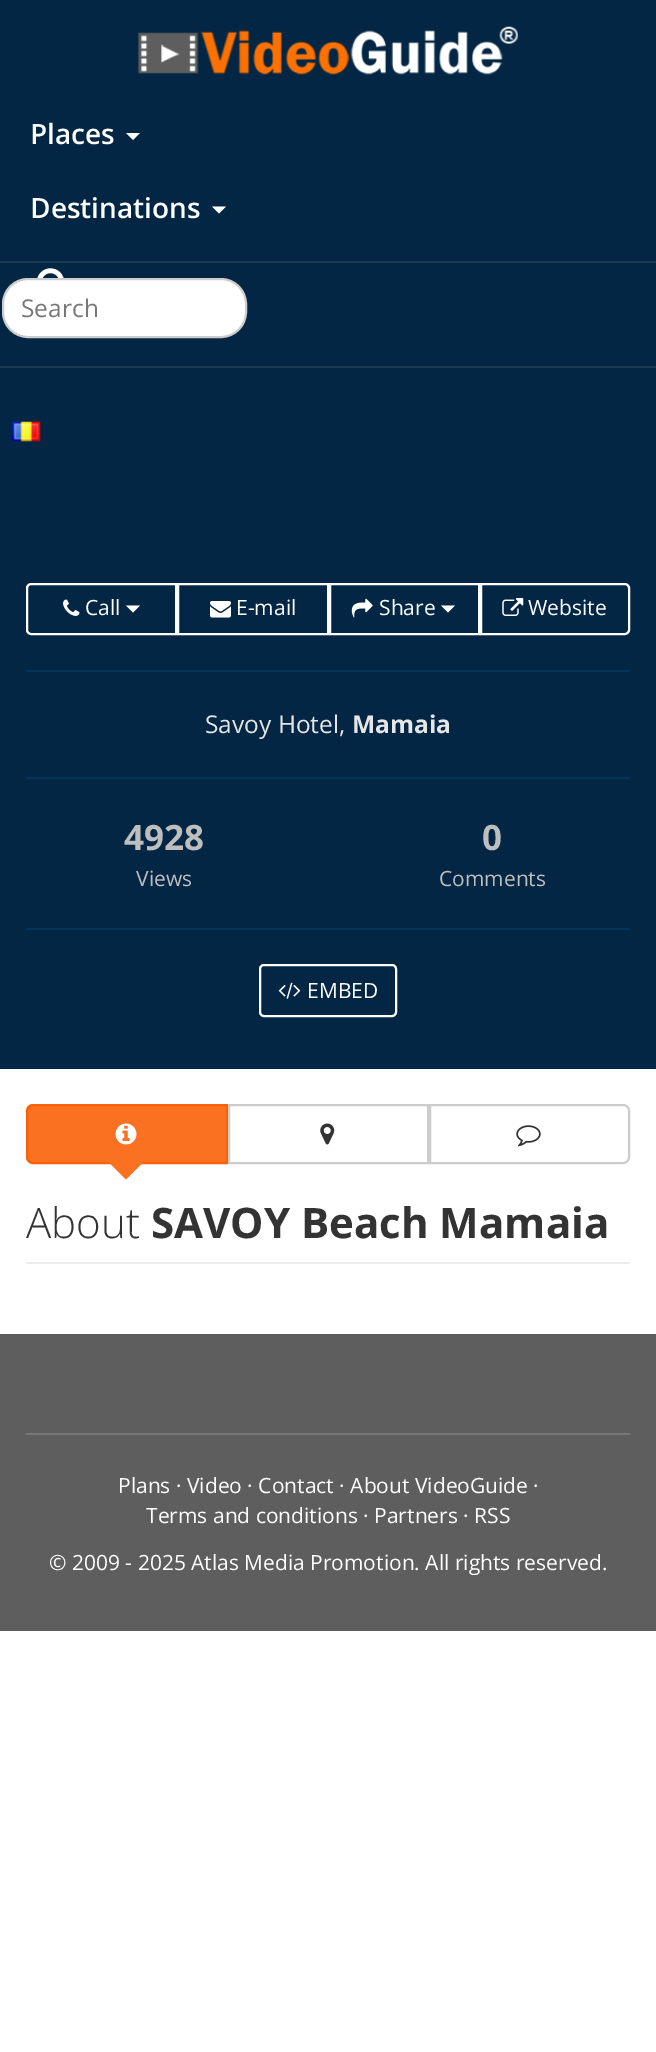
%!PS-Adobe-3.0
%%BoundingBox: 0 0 656 2052
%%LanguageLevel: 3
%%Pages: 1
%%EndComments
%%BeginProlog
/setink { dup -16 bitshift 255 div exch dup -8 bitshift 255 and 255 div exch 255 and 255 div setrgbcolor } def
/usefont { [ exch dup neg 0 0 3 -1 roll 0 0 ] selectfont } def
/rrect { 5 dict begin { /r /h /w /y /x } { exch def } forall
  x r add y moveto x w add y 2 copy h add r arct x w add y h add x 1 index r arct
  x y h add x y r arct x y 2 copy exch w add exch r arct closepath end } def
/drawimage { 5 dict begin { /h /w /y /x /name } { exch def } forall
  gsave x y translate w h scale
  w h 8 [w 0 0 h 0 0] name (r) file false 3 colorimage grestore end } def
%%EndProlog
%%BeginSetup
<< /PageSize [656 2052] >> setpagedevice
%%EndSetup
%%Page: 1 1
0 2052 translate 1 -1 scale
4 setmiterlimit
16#FFFFFF setink
0 0 656 2052 rectfill
16#022643 setink
0 0 656 1069 rectfill
(img1.raw) 138 26 380 49 drawimage
(img2.raw) 37 268 27 10 drawimage
/OpenSans-SemiBold 28 usefont
16#FFFFFF setink
30 144 moveto (Places) show
126 133 moveto 140 133 lineto 133 140 lineto closepath fill
30 218 moveto (Destinations) show
212 206.5 moveto 226 206.5 lineto 219 213.5 lineto closepath fill
16#1B3C56 setink
-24 366 moveto -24 368 lineto 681 368 lineto 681 261 lineto 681 366 lineto closepath fill
0 261 656 2 rectfill
16#FFFFFF setink
3 279 243 58 25 rrect gsave fill grestore
16#CCCCCC setink
2 setlinewidth
stroke
/OpenSans-Regular 24.5 usefont
16#777777 setink
21 317 moveto (Search) show
(img3.raw) 12 421 29 21 drawimage
16#FFFFFF setink
31 584 moveto 176 584 lineto 176 634 lineto 31 634 lineto 29 634 27 632 27 630 curveto 27 588 lineto 27 586 29 584 31 584 curveto closepath stroke
(img4.raw) 63 599 17 17 drawimage
/OpenSans-Regular 21 usefont
85 615 moveto (Call) show
126 605.5 moveto 140 605.5 lineto 133 612.5 lineto closepath fill
178 584 150 50 rectstroke
(img5.raw) 210 601 21 17 drawimage
236 615 moveto (E-mail) show
330 584 149 50 rectstroke
(img6.raw) 351 598 22 20 drawimage
379 615 moveto (Share) show
441 605.5 moveto 455 605.5 lineto 448 612.5 lineto closepath fill
481 584 moveto 625 584 lineto 627 584 629 586 629 588 curveto 629 630 lineto 629 632 627 634 625 634 curveto 481 634 lineto closepath stroke
(img7.raw) 502 598 22 18 drawimage
528 615 moveto (Website) show
16#03345C setink
26 670 604 2 rectfill
/OpenSans-Regular 24.5 usefont
16#E6E6E6 setink
205 733 moveto (Savoy Hotel,) show
/OpenSans-Bold 24.5 usefont
352 733 moveto (Mamaia) show
16#03345C setink
26 777 604 2 rectfill
/OpenSans-Bold 35 usefont
16#BEBEBE setink
124 850 moveto (4928) show
/OpenSans-Regular 21 usefont
136 886 moveto (Views) show
/OpenSans-Bold 35 usefont
482 850 moveto (0) show
/OpenSans-Regular 21 usefont
439 886 moveto (Comments) show
16#03345C setink
26 928 604 2 rectfill
16#FFFFFF setink
260 965 136 51 4 rrect stroke
(img8.raw) 278 982 23 17 drawimage
307 998 moveto (EMBED) show
16#FA7121 setink
33 1105 moveto 227 1105 lineto 227 1163 lineto 33 1163 lineto 29.5 1163 27 1160.5 27 1157 curveto 27 1111 lineto 27 1107.5 29.5 1105 33 1105 curveto closepath gsave fill grestore
16#F96108 setink
stroke
(img9.raw) 115 1123 22 22 drawimage
16#FA7121 setink
108.5 1162 moveto 143.5 1162 lineto 126 1179.5 lineto closepath fill
16#CCCCCC setink
229 1105 199 58 rectstroke
(img10.raw) 320 1123 15 22 drawimage
430 1105 moveto 623 1105 lineto 626.5 1105 629 1107.5 629 1111 curveto 629 1157 lineto 629 1160.5 626.5 1163 623 1163 curveto 430 1163 lineto closepath stroke
(img11.raw) 516 1125 25 22 drawimage
16#EEEEEE setink
26 1262 604 2 rectfill
/OpenSans-Light 42 usefont
16#333333 setink
26 1238 moveto (About) show
/OpenSans-Bold 42 usefont
151 1238 moveto (SAVOY Beach Mamaia) show
16#5E5E5E setink
0 1334 656 297 rectfill
16#787878 setink
26 1433 604 2 rectfill
/OpenSans-Regular 21 usefont
16#FFFFFF setink
[
    [(Plans · Video · Contact · About VideoGuide ·) 118 1493]
    [(Terms and conditions · Partners · RSS) 146 1523]
    [(© 2009 - 2025 Atlas Media Promotion. All rights reserved.) 49 1570]
] { aload pop moveto show } forall
showpage
%%EOF
